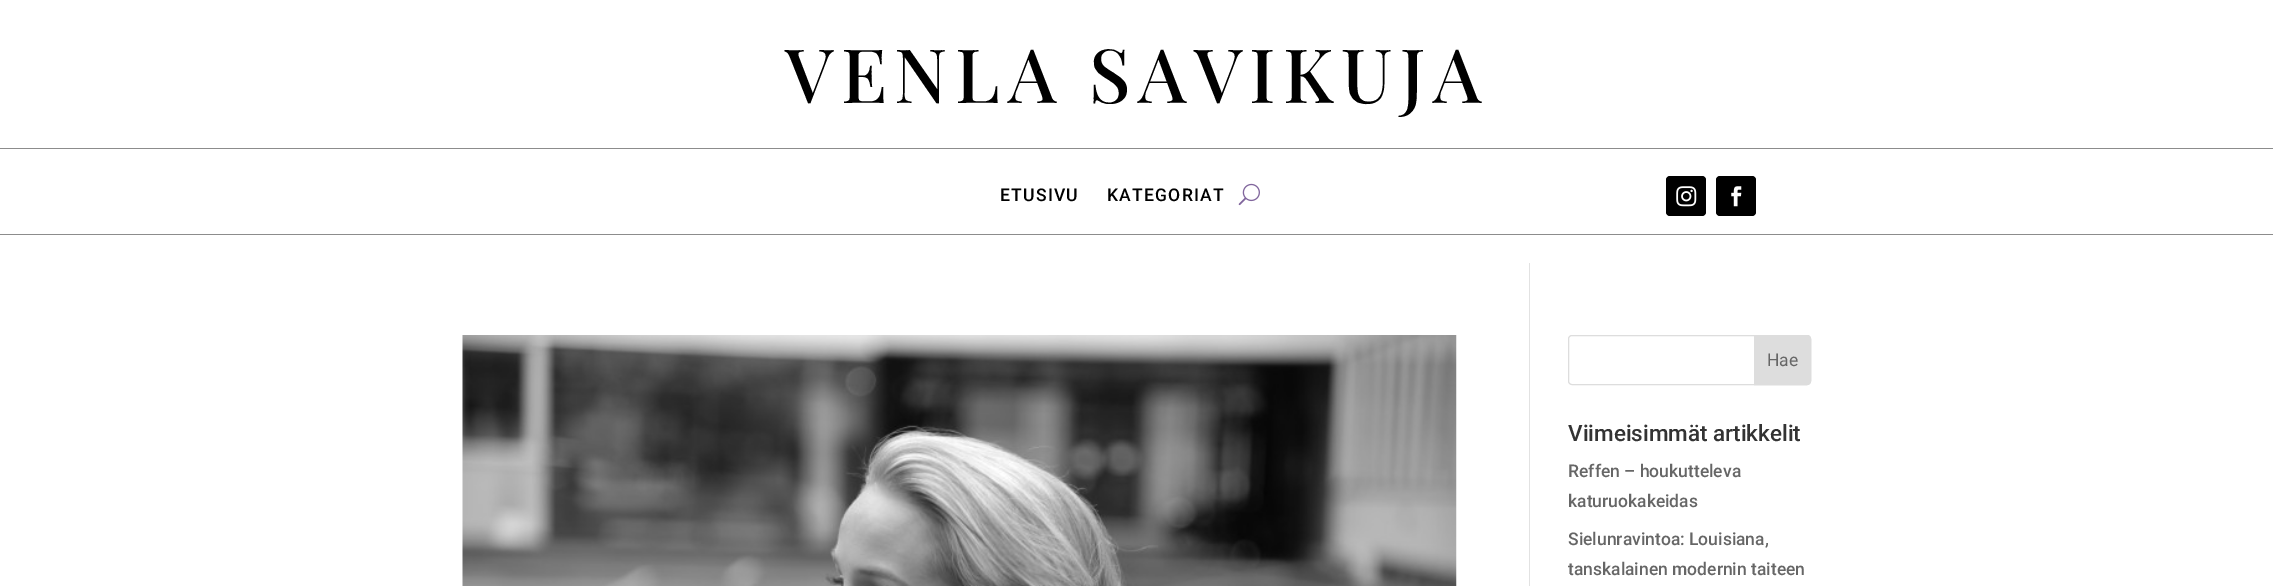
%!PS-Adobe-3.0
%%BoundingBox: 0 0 2273 586
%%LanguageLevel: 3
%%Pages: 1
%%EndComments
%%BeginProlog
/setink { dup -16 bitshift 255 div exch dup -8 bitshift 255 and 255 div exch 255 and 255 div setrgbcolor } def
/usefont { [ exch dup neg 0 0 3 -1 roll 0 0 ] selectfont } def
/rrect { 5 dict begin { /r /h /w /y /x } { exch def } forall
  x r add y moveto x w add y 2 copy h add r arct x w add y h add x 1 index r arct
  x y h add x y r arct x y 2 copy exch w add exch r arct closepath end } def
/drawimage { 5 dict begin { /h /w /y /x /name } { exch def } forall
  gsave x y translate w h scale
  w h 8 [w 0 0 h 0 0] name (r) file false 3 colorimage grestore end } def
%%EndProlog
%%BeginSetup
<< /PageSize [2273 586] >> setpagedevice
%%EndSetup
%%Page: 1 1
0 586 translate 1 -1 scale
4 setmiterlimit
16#FFFFFF setink
0 0 2273 586 rectfill
/PlayfairDisplay-Medium 75 usefont
16#000000 setink
785 103 moveto 7.5 0 (VENLA SAVIKUJA) ashow
16#8C8C8C setink
0 148 2273 1 rectfill
/Roboto-Medium 17.5 usefont
16#000000 setink
1000 201 moveto 1.25 0 (ETUSIVU) ashow
1107 201 moveto 1.25 0 (KATEGORIAT) ashow
(img1.raw) 1238 183 22 23 drawimage
1666 176 40 40 4 rrect fill
(img2.raw) 1676 186 21 21 drawimage
1716 176 40 40 4 rrect fill
(img3.raw) 1731 186 11 21 drawimage
16#8C8C8C setink
0 234 2273 1 rectfill
16#E2E2E2 setink
1529 263 1 323 rectfill
(img4.raw) 462 335 995 251 drawimage
16#DDDDDD setink
1568.5 335.5 242 49 3.5 rrect stroke
1754.5 335.5 moveto 1807 335.5 lineto 1809 335.5 1810.5 337 1810.5 339 curveto 1810.5 381 lineto 1810.5 383 1809 384.5 1807 384.5 curveto 1754.5 384.5 lineto closepath gsave fill grestore
stroke
/Roboto-Regular 17.5 usefont
16#666666 setink
1767 366 moveto (Hae) show
/Roboto-Medium 22.5 usefont
16#333333 setink
1568 441 moveto (Viimeisimmät artikkelit) show
/Roboto-Medium 17.5 usefont
16#666666 setink
[
    [(Reffen – houkutteleva) 1568 477]
    [(katuruokakeidas) 1568 507]
    [(Sielunravintoa: Louisiana,) 1568 545]
    [(tanskalainen modernin taiteen) 1568 575]
] { aload pop moveto show } forall
showpage
%%EOF
